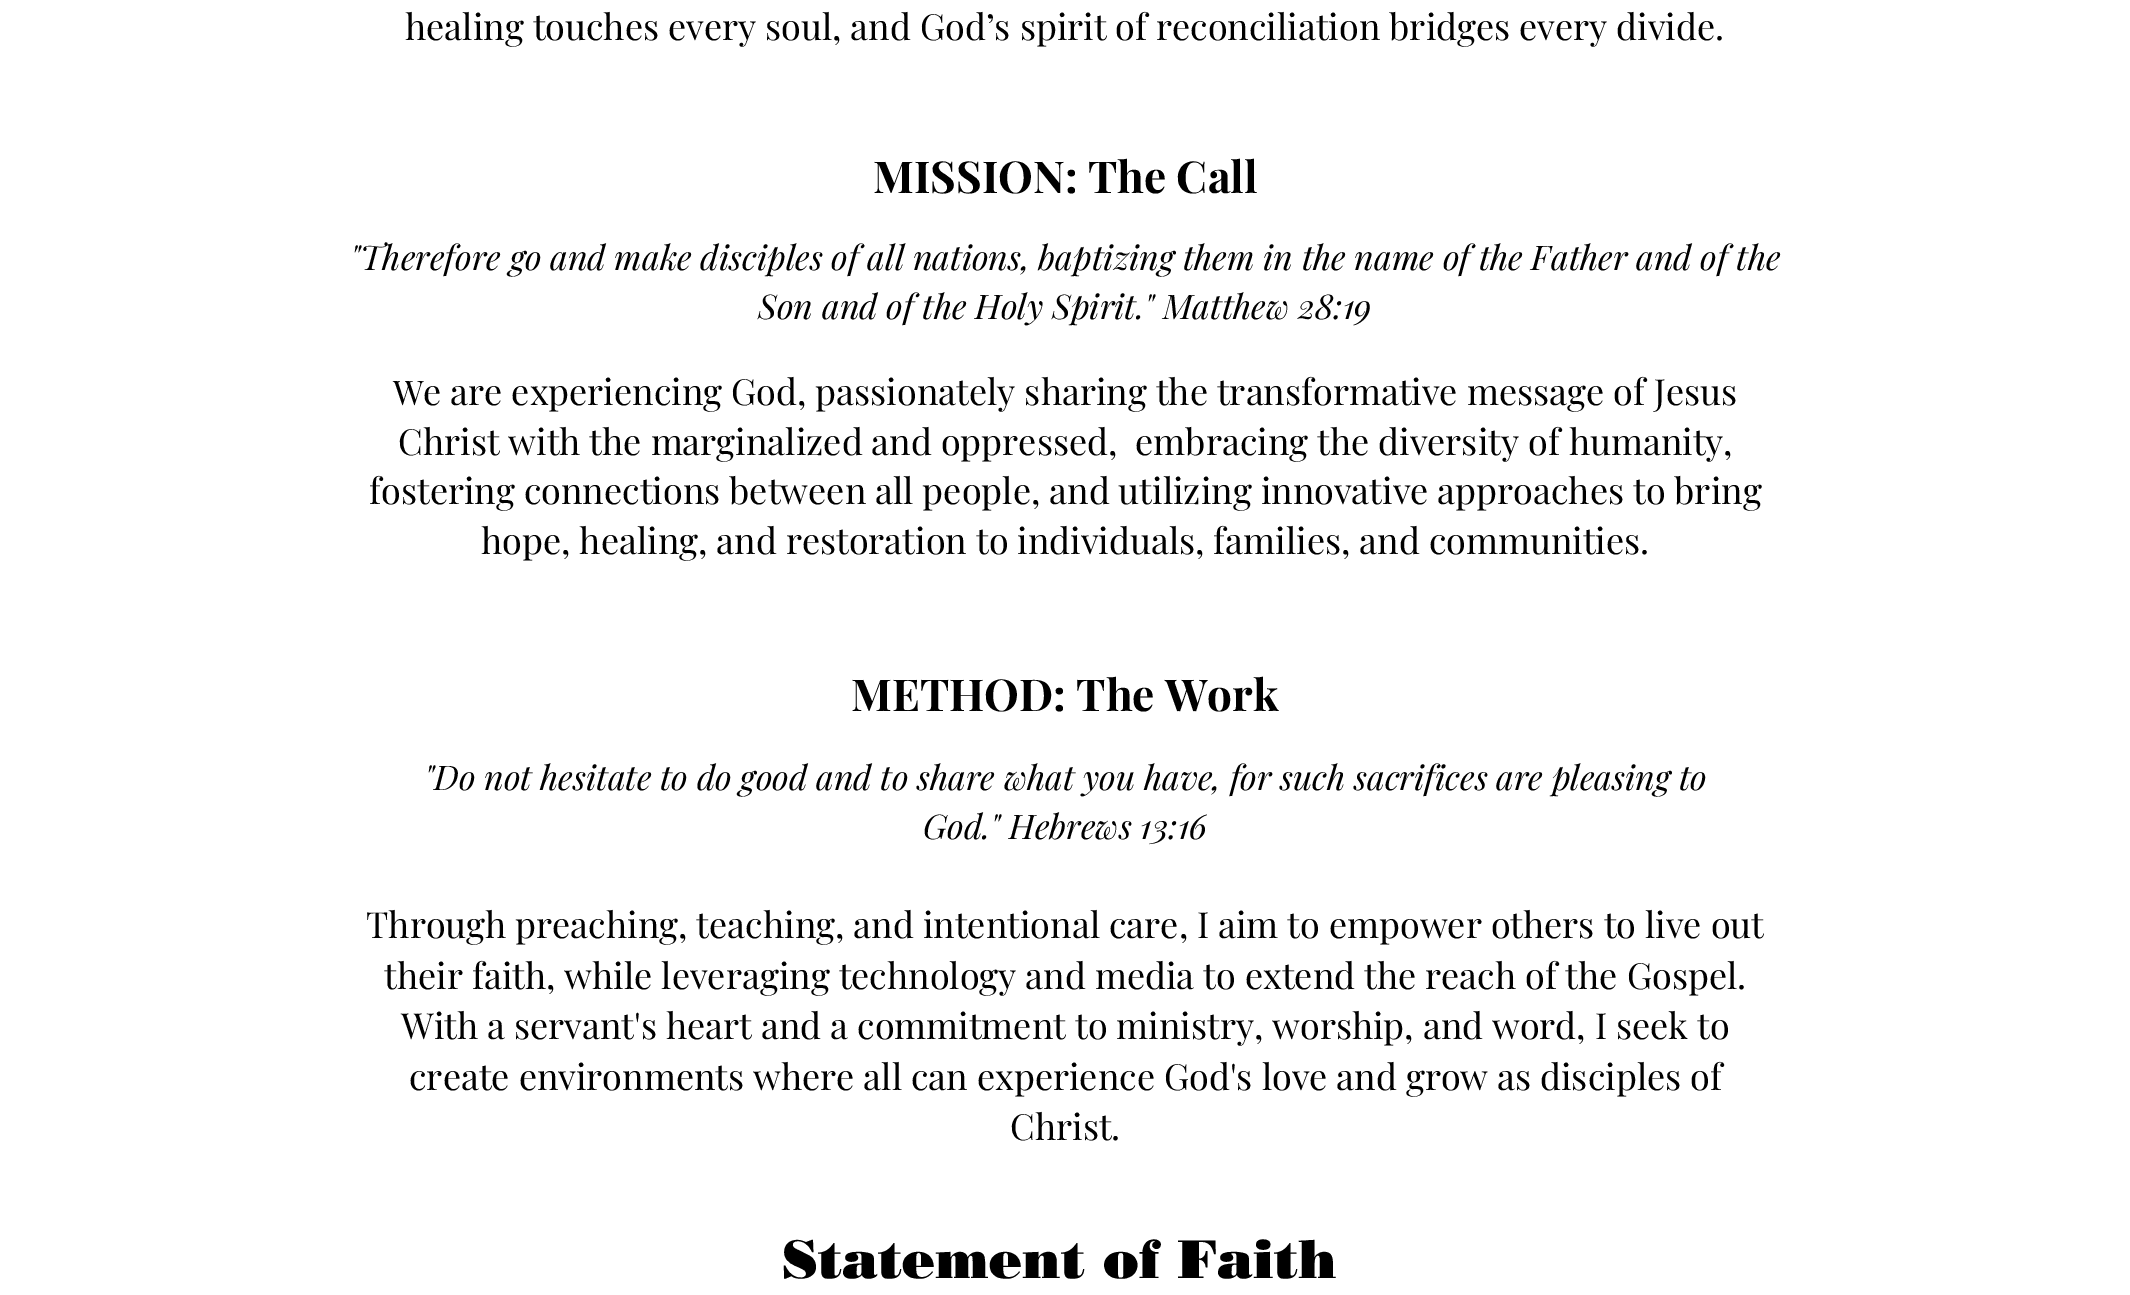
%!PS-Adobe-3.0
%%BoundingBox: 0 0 2130 1295
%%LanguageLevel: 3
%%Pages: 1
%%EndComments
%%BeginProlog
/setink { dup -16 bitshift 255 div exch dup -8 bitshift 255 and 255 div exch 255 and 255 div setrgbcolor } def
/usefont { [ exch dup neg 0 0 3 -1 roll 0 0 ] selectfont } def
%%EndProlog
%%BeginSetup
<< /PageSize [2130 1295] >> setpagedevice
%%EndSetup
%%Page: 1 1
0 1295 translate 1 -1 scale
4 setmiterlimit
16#FFFFFF setink
0 0 2130 1295 rectfill
/PlayfairDisplay-Regular 36 usefont
16#000000 setink
405 40 moveto (healing touches every soul, and God’s spirit of reconciliation bridges every divide.) show
/PlayfairDisplay-Bold 44 usefont
873 193 moveto (MISSION: The Call) show
/PlayfairDisplay-Italic 34 usefont
350 270 moveto ("Therefore go and make disciples of all nations, baptizing them in the name of the Father and of the) show
758 319 moveto (Son and of the Holy Spirit." Matthew 28:19) show
/PlayfairDisplay-Regular 34 usefont
393 405 moveto (W) show
/PlayfairDisplay-Regular 36 usefont
[
    [(e are experiencing God, passionately sharing the transformative message of Jesus) 423 405]
    [(Christ with the marginalized and oppressed,  embracing the diversity of humanity,) 398 455]
    [(fostering connections between all people, and utilizing innovative approaches to bring) 369 504]
    [(hope, healing, and restoration to individuals, families, and communities.) 481 554]
] { aload pop moveto show } forall
/PlayfairDisplay-Bold 44 usefont
851 711 moveto (METHOD: The Work) show
/PlayfairDisplay-Italic 34 usefont
424 790 moveto ("Do not hesitate to do good and to share what you have, for such sacrifices are pleasing to) show
923 839 moveto (God." Hebrews 13:16) show
/PlayfairDisplay-Regular 36 usefont
[
    [(Through preaching, teaching, and intentional care, I aim to empower others to live out) 366 938]
    [(their faith, while leveraging technology and media to extend the reach of the Gospel.) 384 989]
    [(With a servant's heart and a commitment to ministry, worship, and word, I seek to) 401 1039]
    [(create environments where all can experience God's love and grow as disciples of) 409 1090]
    [(Christ.) 1010 1140]
] { aload pop moveto show } forall
/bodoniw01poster-Black 54 usefont
782 1278 moveto (Statement of Faith) show
showpage
%%EOF
